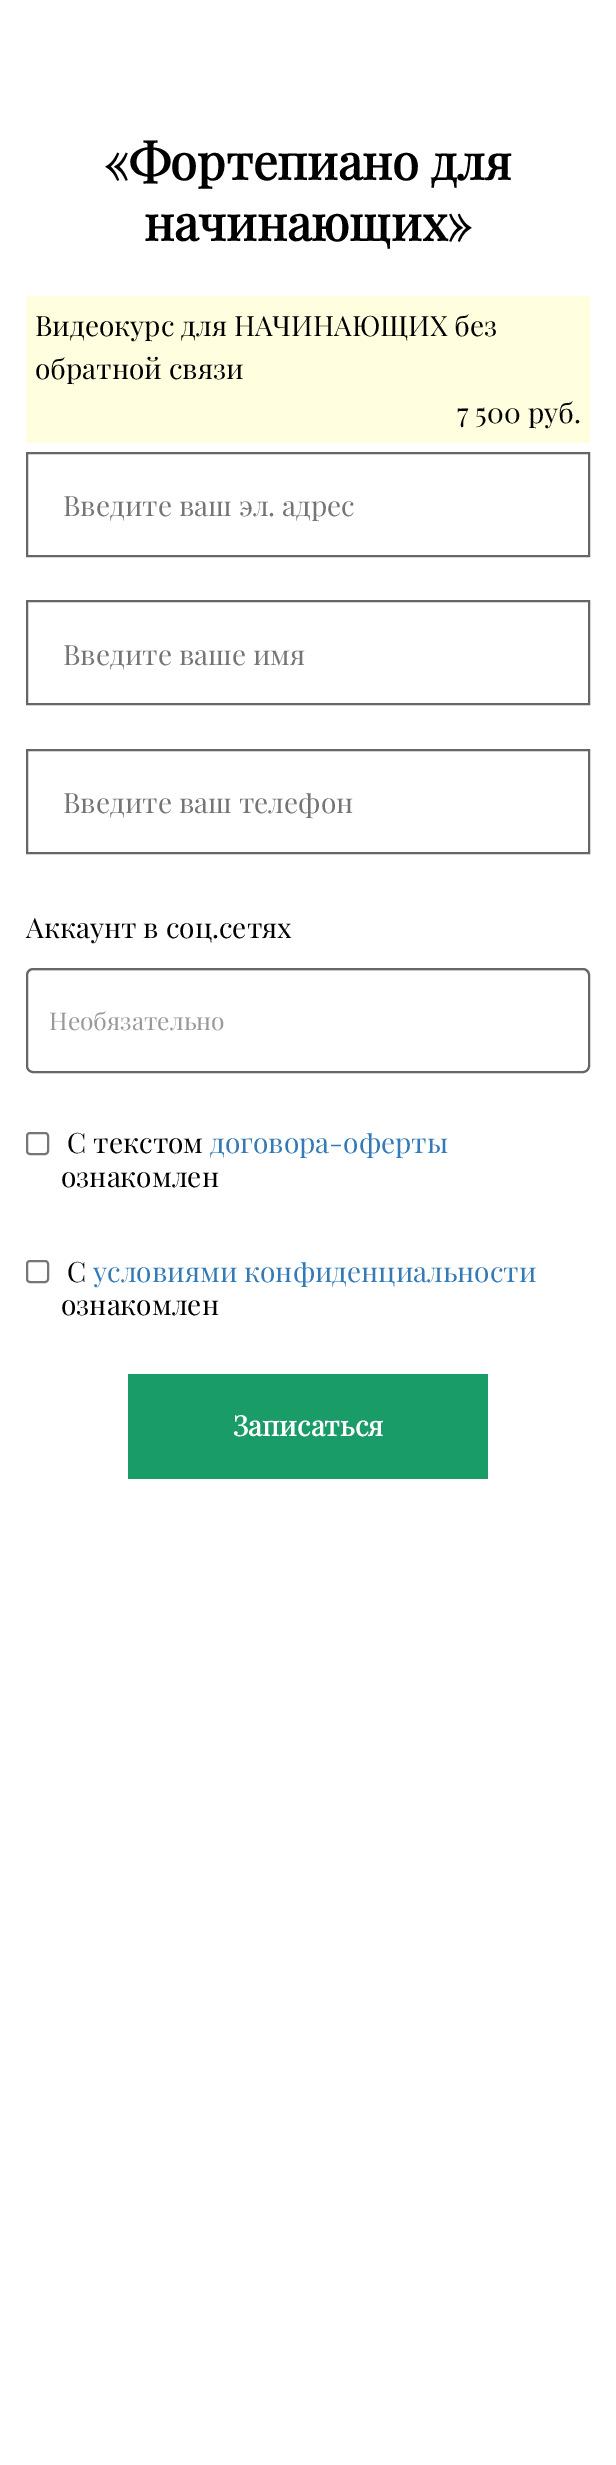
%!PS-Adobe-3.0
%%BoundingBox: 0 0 616 2465
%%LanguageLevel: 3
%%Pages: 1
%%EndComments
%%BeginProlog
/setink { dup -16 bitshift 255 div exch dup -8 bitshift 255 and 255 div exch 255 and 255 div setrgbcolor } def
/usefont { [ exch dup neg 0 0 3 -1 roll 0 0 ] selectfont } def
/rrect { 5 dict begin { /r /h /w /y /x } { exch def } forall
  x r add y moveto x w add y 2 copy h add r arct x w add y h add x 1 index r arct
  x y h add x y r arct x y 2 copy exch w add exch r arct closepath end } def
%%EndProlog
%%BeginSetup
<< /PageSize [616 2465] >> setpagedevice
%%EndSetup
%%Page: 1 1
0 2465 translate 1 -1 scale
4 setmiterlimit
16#FFFFFF setink
0 0 616 2465 rectfill
/PlayfairDisplay-Bold 49 usefont
16#000000 setink
104 180 moveto («Фортепиано для) show
144 241 moveto (начинающих») show
16#FFFFE0 setink
26 296 564 147 rectfill
/PlayfairDisplay-Regular 28 usefont
16#000000 setink
[
    [(Видеокурс для НАЧИНАЮЩИХ без) 35 336]
    [(обратной связи) 35 379]
    [(7 500 руб.) 457 423]
] { aload pop moveto show } forall
16#666666 setink
2 setlinewidth
27 453 562 103 rectstroke
16#757575 setink
63 516 moveto (Введите ваш эл. адрес) show
16#666666 setink
27 601 562 103 rectstroke
16#757575 setink
63 665 moveto (Введите ваше имя) show
16#666666 setink
27 750 562 103 rectstroke
16#757575 setink
63 813 moveto (Введите ваш телефон) show
16#000000 setink
26 938 moveto (Аккаунт в соц.сетях) show
16#ECECEC setink
33 971 moveto 583 971 lineto 586 971 588 974 588 976 curveto 588 973 586 970 583 970 curveto 33 970 lineto 30 970 28 973 28 976 curveto 28 974 30 971 33 971 curveto closepath fill
16#666666 setink
27 969 562 103 6 rrect stroke
/PlayfairDisplay-Regular 24.5 usefont
16#999999 setink
49 1030 moveto (Необязательно) show
16#767676 setink
27 1133 21 21 3 rrect stroke
/PlayfairDisplay-Regular 28 usefont
16#000000 setink
67 1153 moveto (С текстом) show
16#337AB7 setink
210 1153 moveto (договора-оферты) show
16#000000 setink
61 1187 moveto (ознакомлен) show
16#767676 setink
27 1261 21 21 3 rrect stroke
16#000000 setink
67 1282 moveto (С) show
16#337AB7 setink
93 1282 moveto (условиями конфиденциальности) show
16#000000 setink
61 1315 moveto (ознакомлен) show
16#199C68 setink
128 1374 360 105 rectfill
/PlayfairDisplay-Bold 28 usefont
16#FFFFFF setink
233 1436 moveto (Записаться) show
showpage
%%EOF
